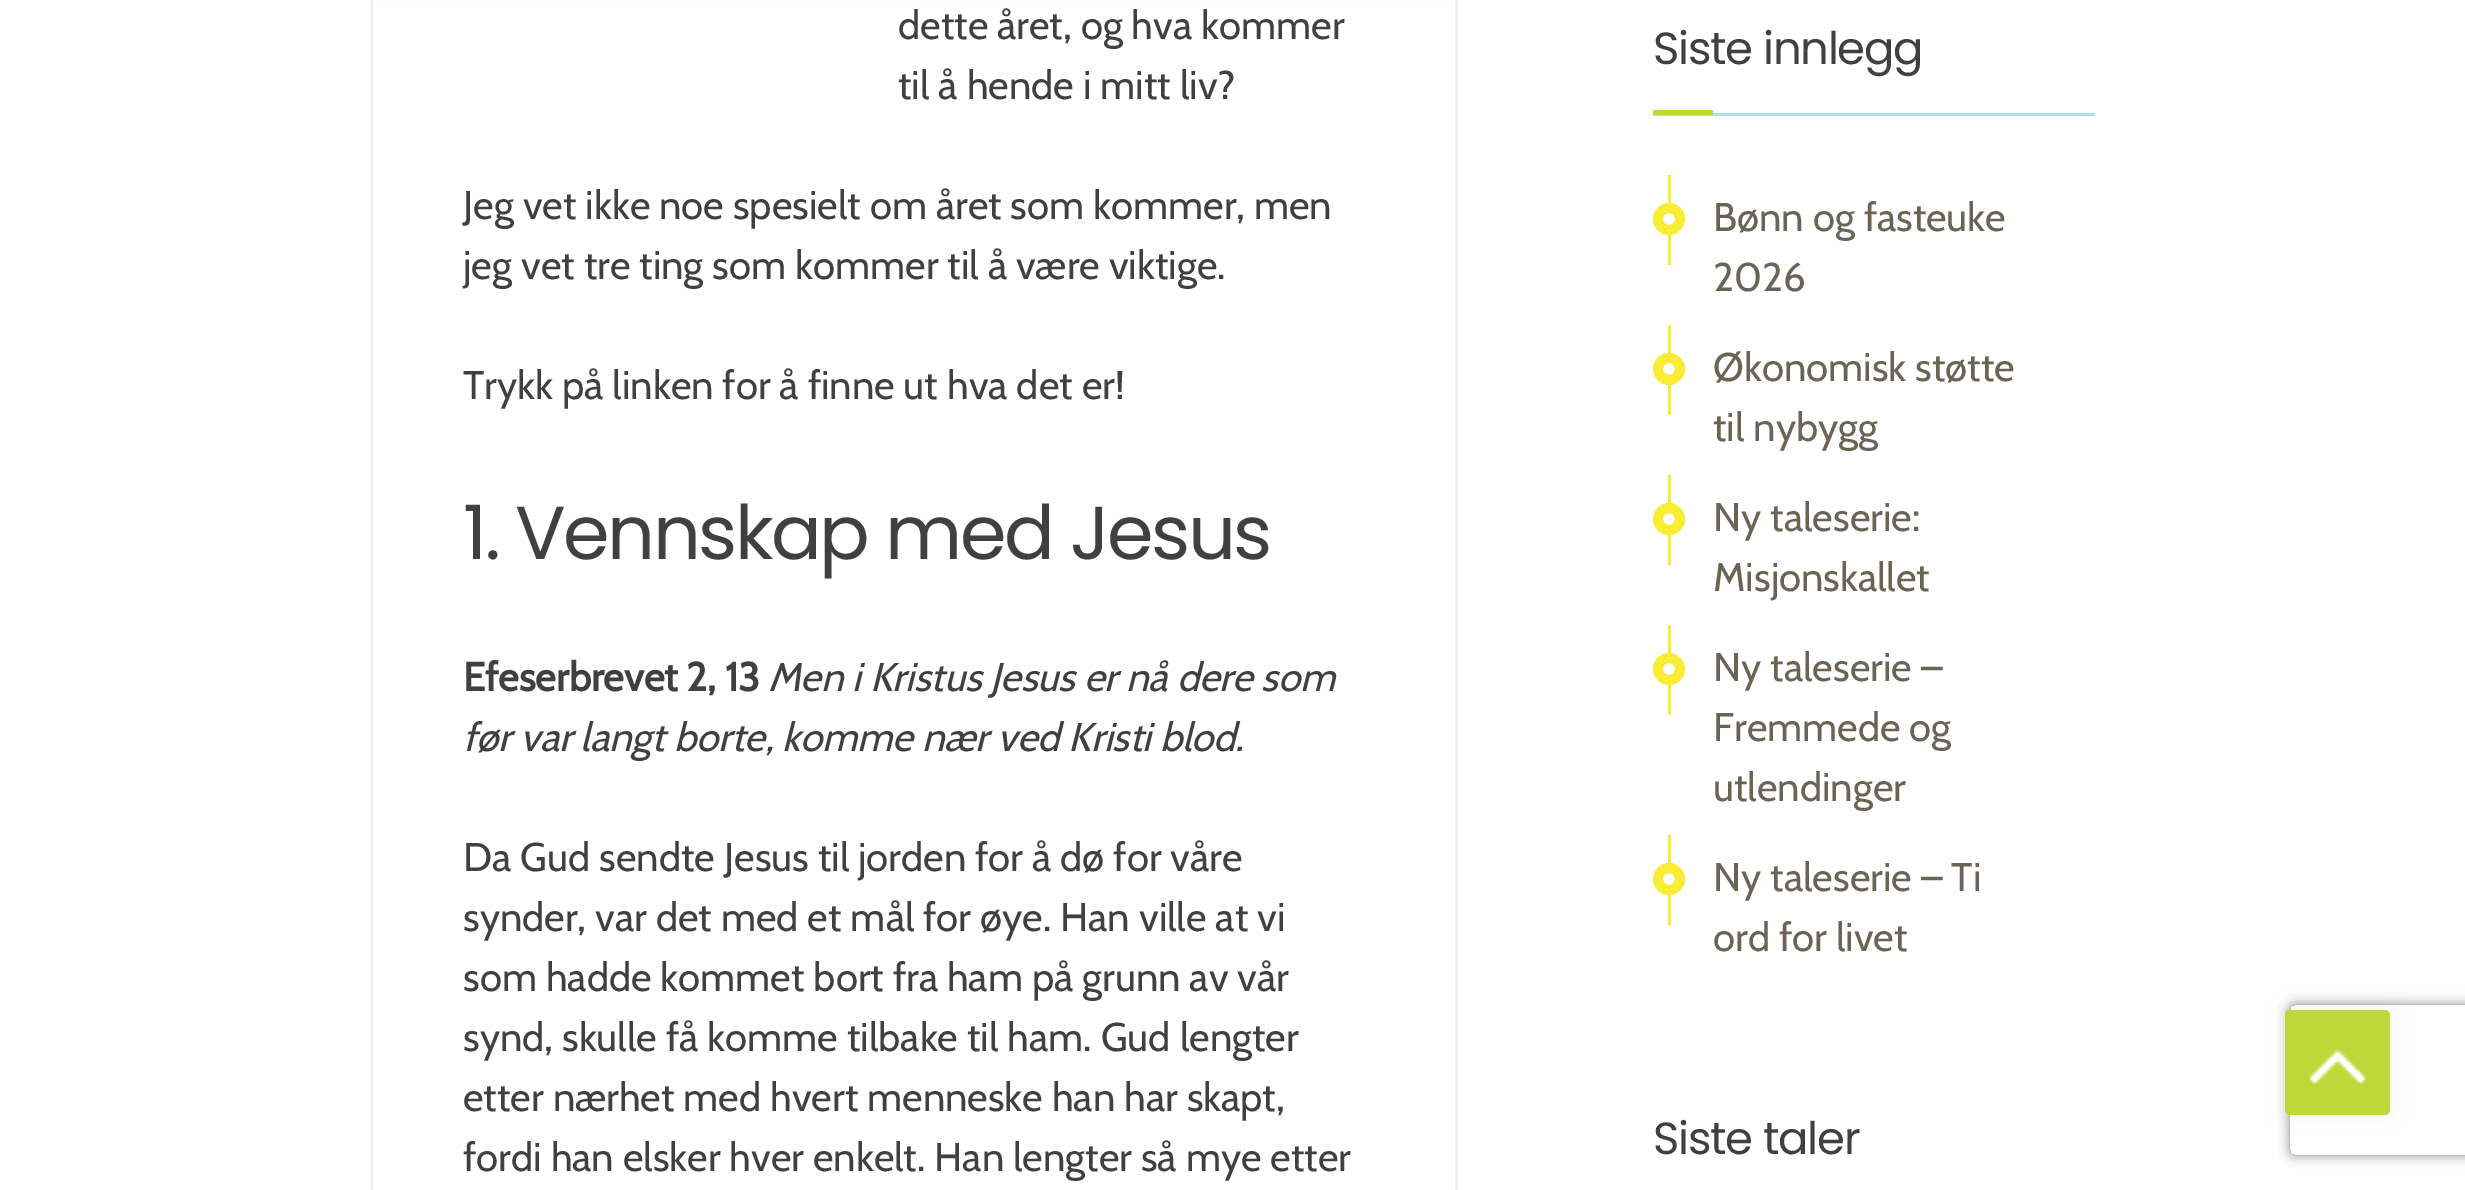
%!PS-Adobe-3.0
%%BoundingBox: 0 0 2465 1190
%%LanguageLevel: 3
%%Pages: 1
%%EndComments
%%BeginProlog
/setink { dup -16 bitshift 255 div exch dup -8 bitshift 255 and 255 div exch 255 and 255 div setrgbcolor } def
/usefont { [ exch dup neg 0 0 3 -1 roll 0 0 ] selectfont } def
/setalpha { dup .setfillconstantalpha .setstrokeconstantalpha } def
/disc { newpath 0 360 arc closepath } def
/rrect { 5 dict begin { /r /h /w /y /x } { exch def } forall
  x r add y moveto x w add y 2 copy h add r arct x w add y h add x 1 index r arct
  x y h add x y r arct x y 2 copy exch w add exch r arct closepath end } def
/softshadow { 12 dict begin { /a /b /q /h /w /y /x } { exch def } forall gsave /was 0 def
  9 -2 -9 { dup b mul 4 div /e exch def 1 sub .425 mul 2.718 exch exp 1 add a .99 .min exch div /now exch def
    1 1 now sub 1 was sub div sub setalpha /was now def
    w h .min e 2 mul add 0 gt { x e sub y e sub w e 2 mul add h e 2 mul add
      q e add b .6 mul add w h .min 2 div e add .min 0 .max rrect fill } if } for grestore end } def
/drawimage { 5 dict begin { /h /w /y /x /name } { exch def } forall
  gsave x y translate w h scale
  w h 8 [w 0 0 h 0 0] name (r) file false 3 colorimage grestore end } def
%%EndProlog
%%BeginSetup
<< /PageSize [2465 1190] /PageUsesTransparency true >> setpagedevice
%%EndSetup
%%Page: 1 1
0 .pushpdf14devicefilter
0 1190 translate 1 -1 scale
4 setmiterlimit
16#FFFFFF setink
0 0 2465 1190 rectfill
16#F1F1F1 setink
3 setlinewidth
371.5 -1.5 1085 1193 rectstroke
/Cabin-Regular 40 usefont
16#404040 setink
[
    [(dette året, og hva kommer) 898 39]
    [(til å hende i mitt liv?) 898 99]
    [(Jeg vet ikke noe spesielt om året som kommer, men) 463 219]
    [(jeg vet tre ting som kommer til å være viktige.) 463 279]
    [(Trykk på linken for å finne ut hva det er!) 463 399]
] { aload pop moveto show } forall
/Poppins-Regular 75 usefont
463 559 moveto -2.5 0 (1. Vennskap med Jesus) ashow
/Cabin-Bold 40 usefont
463 691 moveto (Efeserbrevet 2, 13) show
/Cabin-Italic 40 usefont
768 691 moveto (Men i Kristus Jesus er nå dere som) show
463 751 moveto (før var langt borte, komme nær ved Kristi blod.) show
/Cabin-Regular 40 usefont
[
    [(Da Gud sendte Jesus til jorden for å dø for våre) 463 871]
    [(synder, var det med et mål for øye. Han ville at vi) 463 931]
    [(som hadde kommet bort fra ham på grunn av vår) 463 991]
    [(synd, skulle få komme tilbake til ham. Gud lengter) 463 1051]
    [(etter nærhet med hvert menneske han har skapt,) 463 1111]
    [(fordi han elsker hver enkelt. Han lengter så mye etter) 463 1171]
] { aload pop moveto show } forall
16#B0DFE5 setink
1653 113 442 3 rectfill
/Poppins-Regular 45 usefont
16#404040 setink
1653 64 moveto -1.25 0 (Siste innlegg) ashow
16#BED73B setink
1653 110 60 5 rectfill
16#F8EC34 setink
1668 175 3 90 rectfill
/Cabin-Regular 40 usefont
16#6B6455 setink
1713 231 moveto (Bønn og fasteuke) show
16#FFFFFF setink
1669 219 11 disc gsave fill grestore
16#F8EC34 setink
10 setlinewidth
stroke
16#6B6455 setink
1713 291 moveto (2026) show
16#F8EC34 setink
1668 325 3 90 rectfill
16#6B6455 setink
1713 381 moveto (Økonomisk støtte) show
16#FFFFFF setink
1669 369 11 disc gsave fill grestore
16#F8EC34 setink
stroke
16#6B6455 setink
1713 441 moveto (til nybygg) show
16#F8EC34 setink
1668 475 3 90 rectfill
16#6B6455 setink
1713 531 moveto (Ny taleserie:) show
16#FFFFFF setink
1669 519 11 disc gsave fill grestore
16#F8EC34 setink
stroke
16#6B6455 setink
1713 591 moveto (Misjonskallet) show
16#F8EC34 setink
1668 625 3 90 rectfill
16#6B6455 setink
1713 681 moveto (Ny taleserie –) show
16#FFFFFF setink
1669 669 11 disc gsave fill grestore
16#F8EC34 setink
stroke
16#6B6455 setink
1713 741 moveto (Fremmede og) show
1713 801 moveto (utlendinger) show
16#F8EC34 setink
1668 835 3 90 rectfill
16#6B6455 setink
1713 891 moveto (Ny taleserie – Ti) show
16#FFFFFF setink
1669 879 11 disc gsave fill grestore
16#F8EC34 setink
stroke
16#6B6455 setink
1713 951 moveto (ord for livet) show
/Poppins-Regular 45 usefont
16#404040 setink
1653 1154 moveto -1.25 0 (Siste taler) ashow
16#000000 setink
2285 1010 105 105 5 12.5 0.05 softshadow
gsave
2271 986 moveto 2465 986 lineto 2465 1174 lineto 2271 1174 lineto closepath 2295 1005 moveto 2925 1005 lineto 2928 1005 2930 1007 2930 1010 curveto 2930 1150 lineto 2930 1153 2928 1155 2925 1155 curveto 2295 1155 lineto 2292 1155 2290 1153 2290 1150 curveto 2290 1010 lineto 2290 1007 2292 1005 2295 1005 curveto closepath eoclip newpath
16#808080 setink
2290 1005 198 150 5 6 1 softshadow
grestore
16#BED73B setink
2285 1010 105 105 5 rrect fill
(img1.raw) 2309 1049 57 36 drawimage
.poppdf14devicefilter showpage
%%EOF
